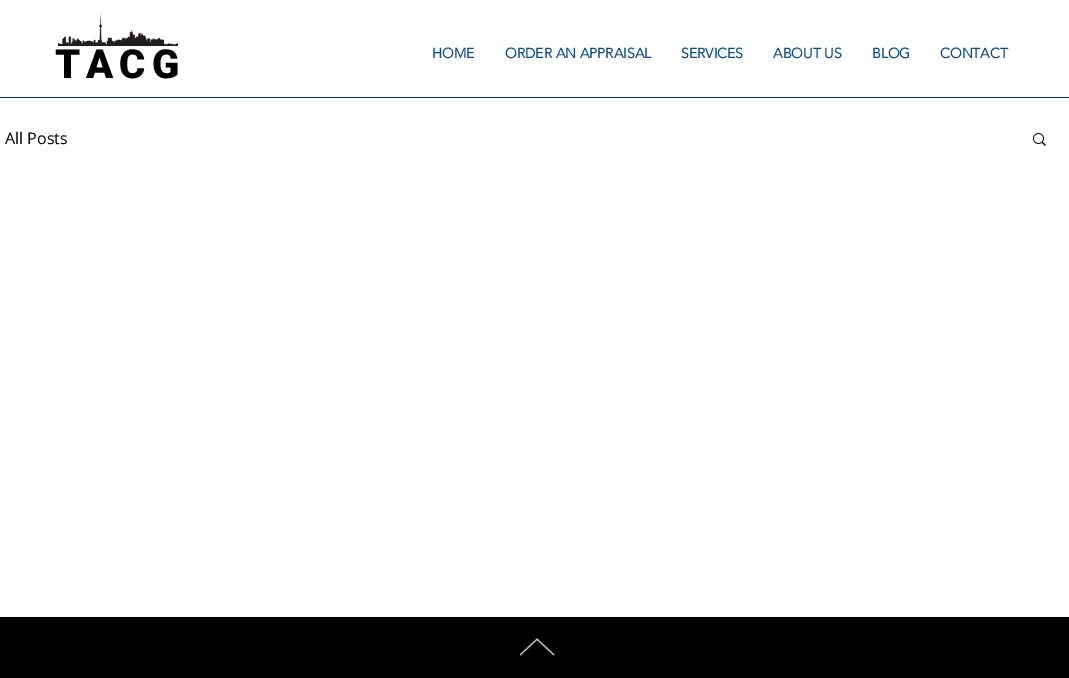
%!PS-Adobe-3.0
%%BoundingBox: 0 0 1069 678
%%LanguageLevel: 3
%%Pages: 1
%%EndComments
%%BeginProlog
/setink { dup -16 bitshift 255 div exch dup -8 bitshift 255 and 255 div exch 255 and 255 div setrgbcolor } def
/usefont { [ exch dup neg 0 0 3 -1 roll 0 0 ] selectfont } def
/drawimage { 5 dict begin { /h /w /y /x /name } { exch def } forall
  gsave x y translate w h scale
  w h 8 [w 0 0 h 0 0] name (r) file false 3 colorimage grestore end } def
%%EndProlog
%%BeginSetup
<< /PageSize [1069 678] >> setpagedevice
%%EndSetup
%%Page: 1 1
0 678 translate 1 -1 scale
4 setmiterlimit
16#FFFFFF setink
0 0 1069 678 rectfill
(img1.raw) 58 14 120 32 drawimage
/Roboto-Black 40 usefont
16#000000 setink
55 78 moveto 6 0 (TACG) ashow
/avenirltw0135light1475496-Bold 14 usefont
16#0F4C85 setink
[
    [(HOME) 432 58]
    [(ORDER AN APPRAISAL) 505 58]
    [(SERVICES) 681 58]
    [(ABOUT US) 773 58]
    [(BLOG) 872 58]
    [(CONTACT) 940 58]
] { aload pop moveto show } forall
16#00305B setink
0 97 1069 1 rectfill
/OpenSans-Regular 16 usefont
16#000000 setink
5 144 moveto (All Posts) show
(img2.raw) 1033 133 13 13 drawimage
0 617 1069 61 rectfill
(img3.raw) 520 638 35 18 drawimage
showpage
%%EOF
